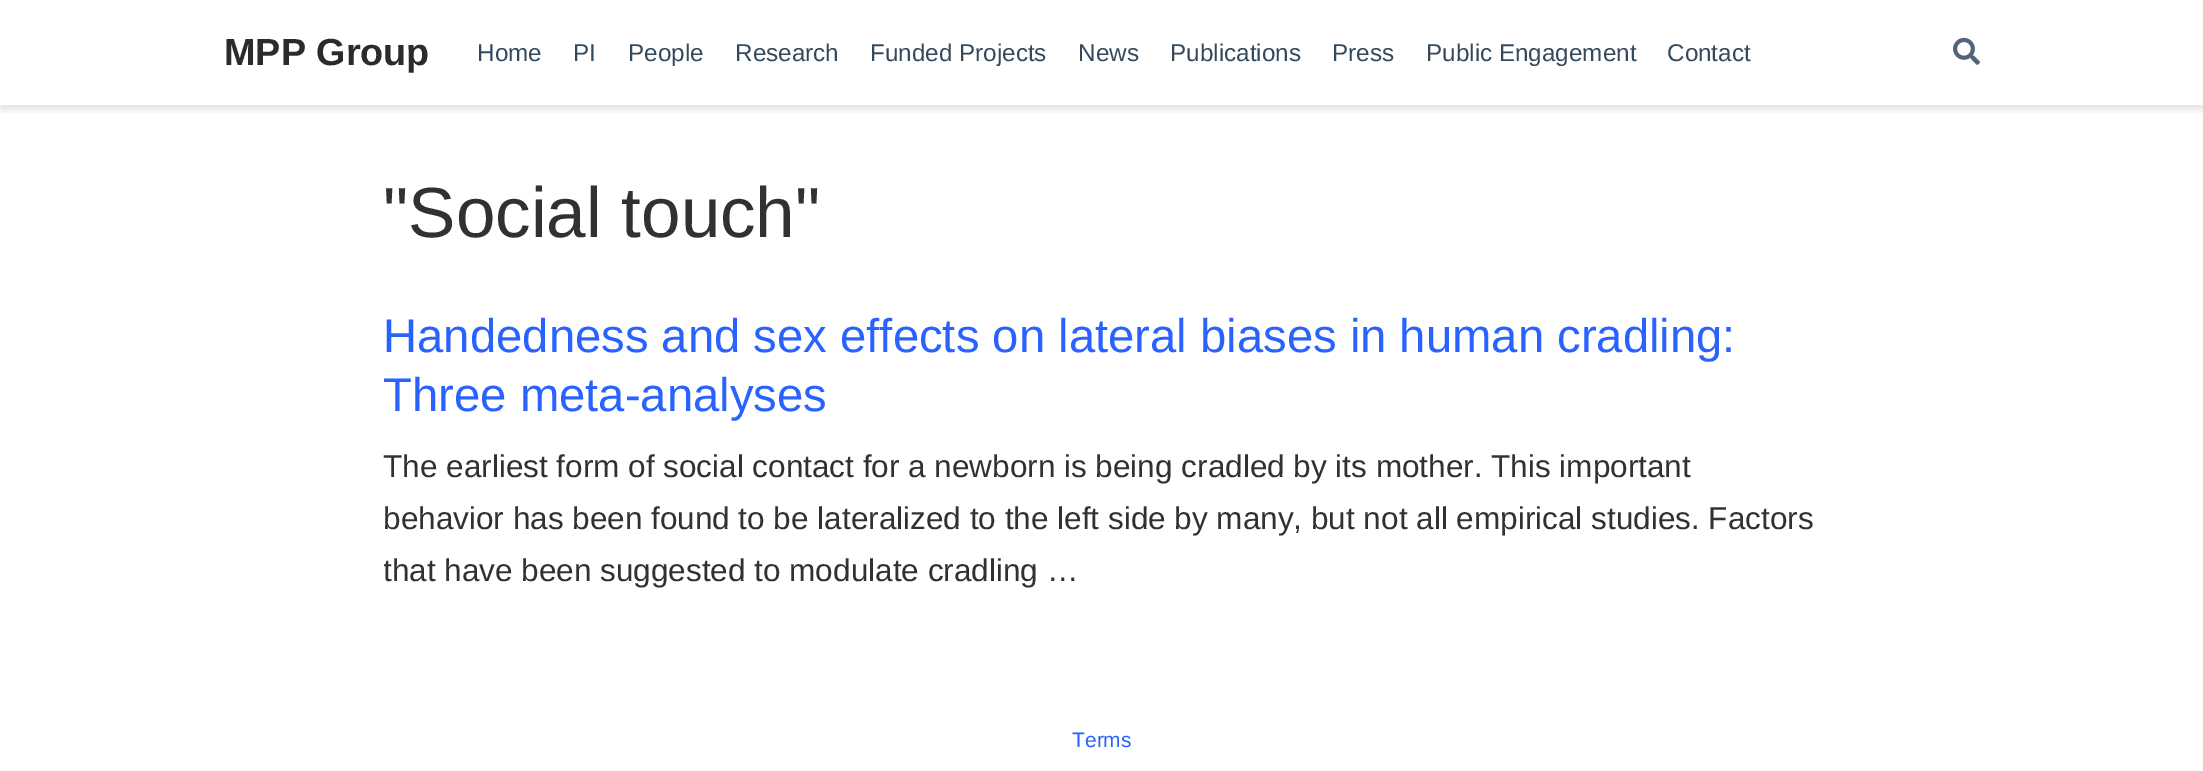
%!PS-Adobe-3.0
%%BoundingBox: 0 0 2203 771
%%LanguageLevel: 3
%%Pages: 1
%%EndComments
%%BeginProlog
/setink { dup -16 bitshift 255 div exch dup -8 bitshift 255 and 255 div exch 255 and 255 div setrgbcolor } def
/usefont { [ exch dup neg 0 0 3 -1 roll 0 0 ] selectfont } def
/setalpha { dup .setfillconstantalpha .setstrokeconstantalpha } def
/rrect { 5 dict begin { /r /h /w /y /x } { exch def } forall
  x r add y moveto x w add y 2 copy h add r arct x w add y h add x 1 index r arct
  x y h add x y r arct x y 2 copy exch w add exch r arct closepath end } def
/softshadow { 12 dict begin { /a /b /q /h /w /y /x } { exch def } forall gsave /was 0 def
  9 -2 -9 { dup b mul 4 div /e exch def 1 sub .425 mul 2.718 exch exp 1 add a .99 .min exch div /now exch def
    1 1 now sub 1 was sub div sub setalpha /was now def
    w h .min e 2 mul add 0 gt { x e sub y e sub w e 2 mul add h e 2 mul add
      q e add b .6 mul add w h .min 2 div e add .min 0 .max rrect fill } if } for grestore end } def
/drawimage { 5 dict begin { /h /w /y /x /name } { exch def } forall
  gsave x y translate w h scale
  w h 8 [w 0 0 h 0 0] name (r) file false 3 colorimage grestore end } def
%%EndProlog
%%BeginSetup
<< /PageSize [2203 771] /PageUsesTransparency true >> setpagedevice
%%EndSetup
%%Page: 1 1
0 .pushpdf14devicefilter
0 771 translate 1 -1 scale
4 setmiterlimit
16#FFFFFF setink
0 0 2203 771 rectfill
gsave
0 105 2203 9 rectclip
16#000000 setink
0 5 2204 105 0 4 0.11 softshadow
grestore
/LiberationSans-Bold 37.75 usefont
16#2B2B2B setink
224 65 moveto (MPP Group) show
/LiberationSans-Regular 24.25 usefont
16#34495E setink
[
    [(Home) 477 61]
    [(PI) 573 61]
    [(People) 628 61]
    [(Research) 735 61]
    [(Funded Projects) 870 61]
    [(News) 1078 61]
    [(Publications) 1170 61]
    [(Press) 1332 61]
    [(Public Engagement) 1426 61]
    [(Contact) 1667 61]
] { aload pop moveto show } forall
(img1.raw) 1953 37 27 28 drawimage
/LiberationSans-Regular 71 usefont
16#313131 setink
383 237 moveto ("Social touch") show
/LiberationSans-Regular 47.25 usefont
16#2962FF setink
383 352 moveto (Handedness and sex effects on lateral biases in human cradling:) show
383 411 moveto (Three meta-analyses) show
/LiberationSans-Regular 31.5 usefont
16#313131 setink
383 477 moveto (The earliest form of social contact for a newborn is being cradled by its mother. This important) show
383 529 moveto (behavior has been found to be lateralized to the left side by many, but not all empirical studies. Factors) show
gsave
384 441 1437 156 rectclip
383 581 moveto (that have been suggested to modulate cradling …) show
grestore
/LiberationSans-Regular 21 usefont
16#2962FF setink
1072 747 moveto (Terms) show
.poppdf14devicefilter showpage
%%EOF
